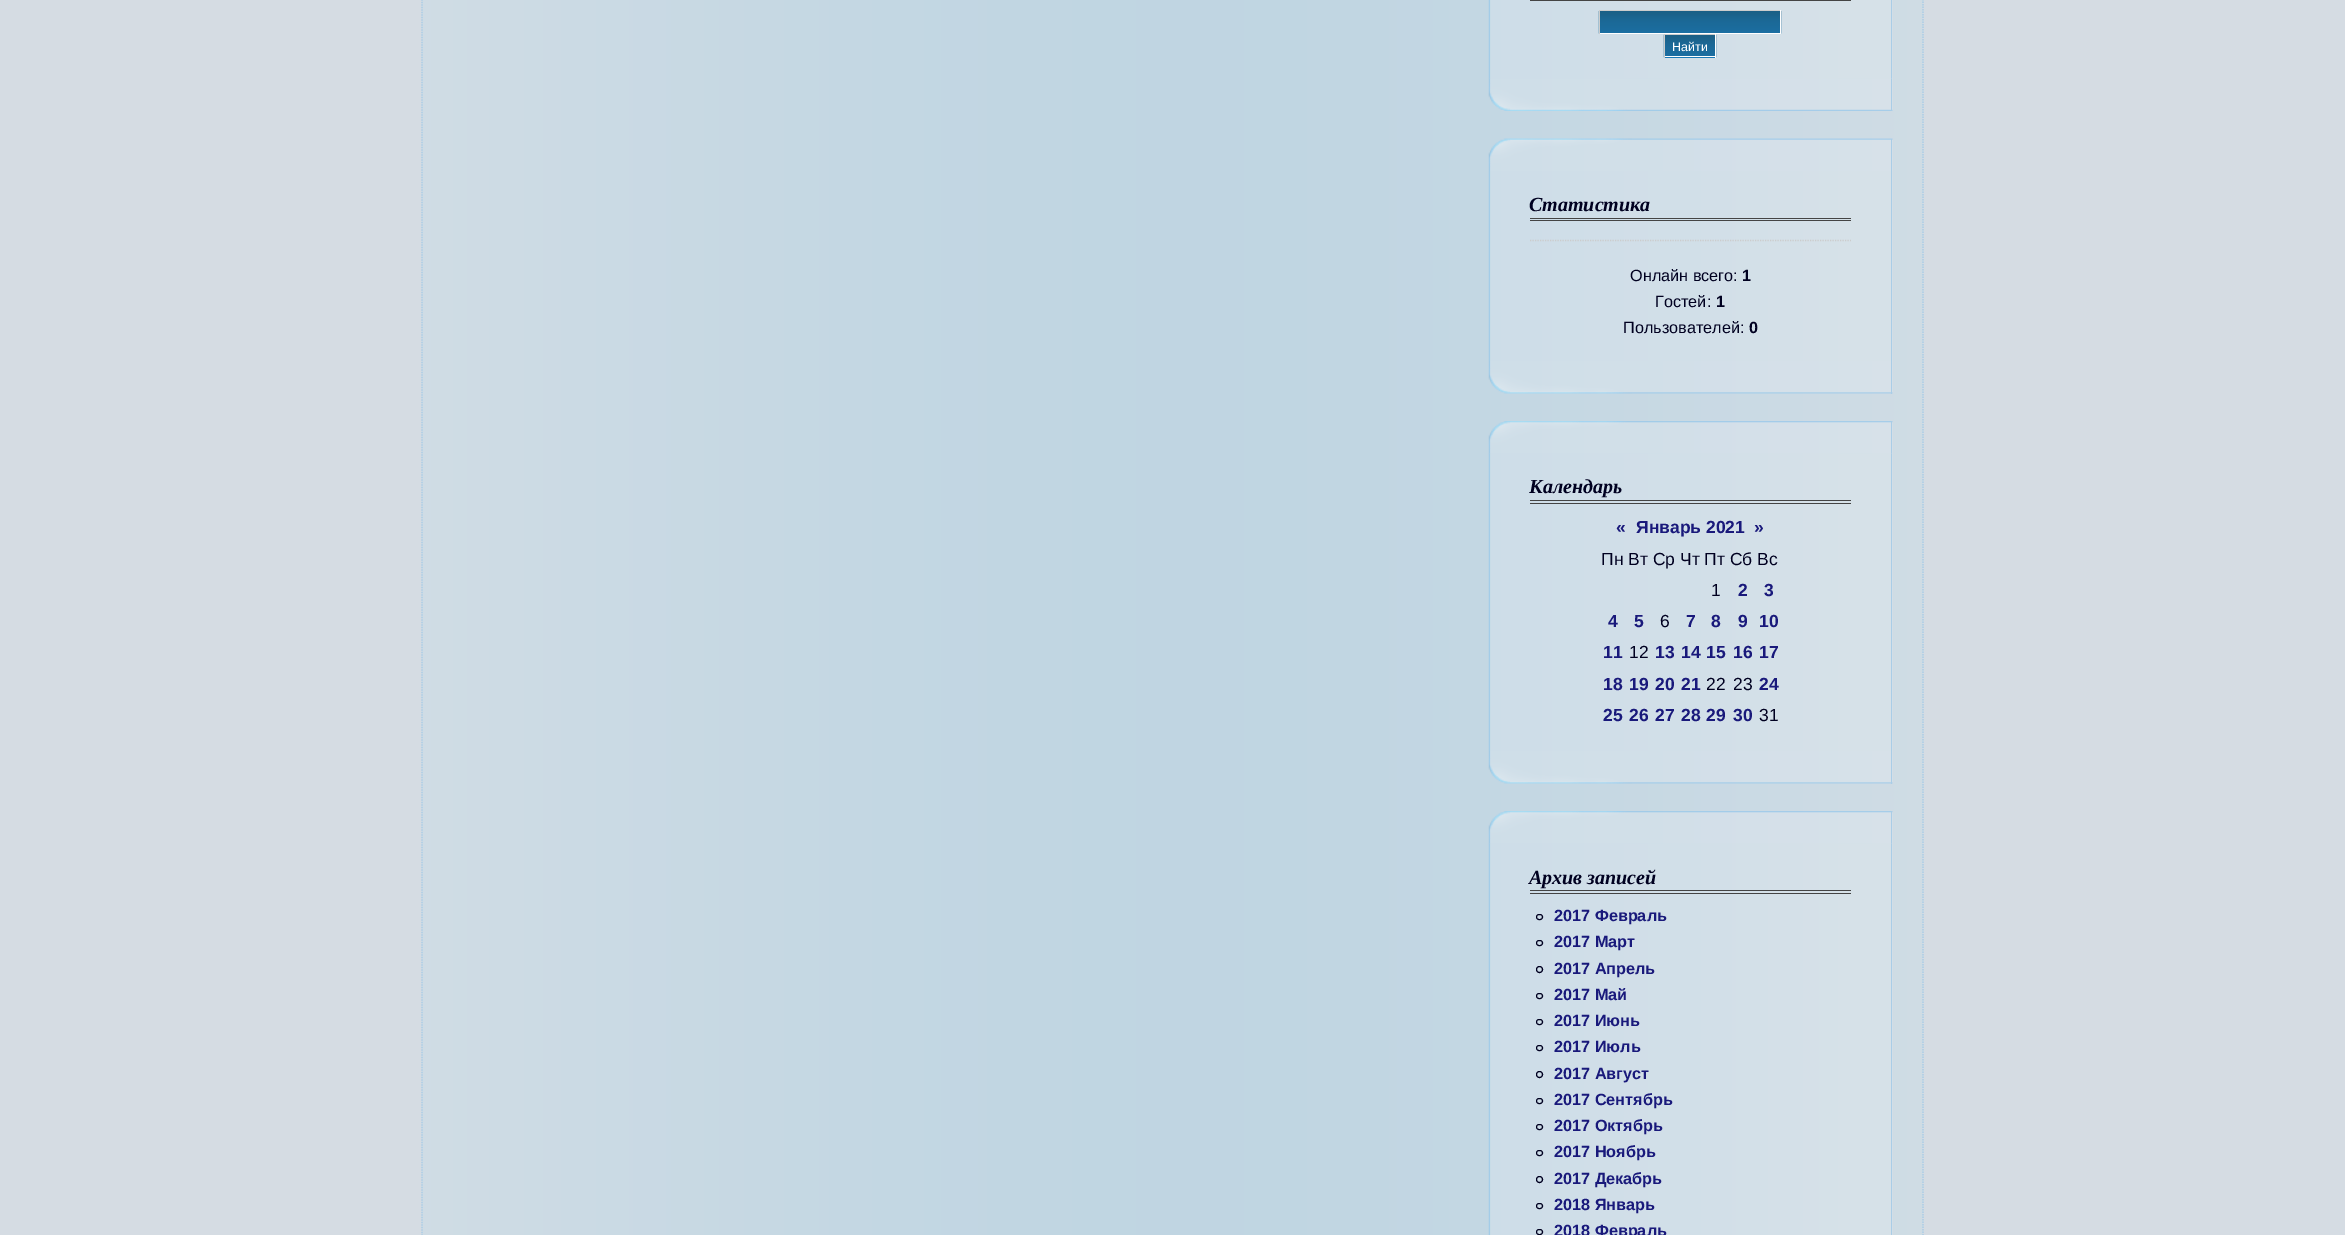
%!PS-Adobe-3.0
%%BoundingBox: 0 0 2345 1235
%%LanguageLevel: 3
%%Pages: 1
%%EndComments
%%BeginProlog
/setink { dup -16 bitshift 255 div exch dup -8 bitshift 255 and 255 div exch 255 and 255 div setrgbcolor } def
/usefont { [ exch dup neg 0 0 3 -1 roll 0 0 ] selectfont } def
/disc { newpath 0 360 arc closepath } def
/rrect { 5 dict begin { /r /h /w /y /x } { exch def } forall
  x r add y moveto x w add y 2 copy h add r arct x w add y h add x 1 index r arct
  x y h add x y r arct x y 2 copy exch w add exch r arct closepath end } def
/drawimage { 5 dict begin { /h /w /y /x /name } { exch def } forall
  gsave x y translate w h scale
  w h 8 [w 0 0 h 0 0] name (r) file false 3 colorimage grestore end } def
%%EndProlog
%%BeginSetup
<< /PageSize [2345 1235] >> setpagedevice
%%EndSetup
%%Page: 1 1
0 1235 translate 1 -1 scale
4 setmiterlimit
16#D5DCE3 setink
0 0 2345 1235 rectfill
(img1.raw) 422 0 1501 1235 drawimage
16#A9CDE7 setink
1.2 setlinewidth
[1.25 1.25] 0 setdash
434 -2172 moveto 1911 -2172 lineto 1918 -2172 1923 -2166.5 1923 -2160 curveto 1923 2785 lineto 1923 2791.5 1918 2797 1911 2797 curveto 434 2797 lineto 427 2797 422 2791.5 422 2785 curveto 422 -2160 lineto 422 -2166.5 427 -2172 434 -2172 curveto closepath stroke
(img2.raw) 1488 0 405 79 drawimage
1891 0 1 79 rectfill
16#444444 setink
1530 0 321 1 rectfill
(img3.raw) 1598 11 184 23 drawimage
[
    [1599 10 182 1 16#CCCCCC]
    [1780 10 1 24 16#FFFFFF]
    [1599 33 182 1 16#FFFFFF]
    [1599 10 1 24 16#CCCCCC]
    [1665 57 50 1 16#1A7DBD]
] { aload pop setink rectfill } forall
(img4.raw) 1663 34 54 24 drawimage
[
    [1664 34 52 1 16#CCCCCC]
    [1715 34 1 24 16#FFFFFF]
    [1664 56 52 1 16#FFFFFF]
    [1664 34 1 24 16#CCCCCC]
] { aload pop setink rectfill } forall
/LiberationSans-Regular 12.5 usefont
16#FFFFFF setink
1672 51 moveto (Найти) show
(img5.raw) 1488 78 405 33 drawimage
16#A9CDE7 setink
1891 79 1 32 rectfill
(img6.raw) 1488 138 405 33 drawimage
1891 139 1 32 rectfill
(img7.raw) 1488 171 405 190 drawimage
[
    [1891 171 1 190 16#A9CDE7]
    [1530 218 321 1 16#444444]
    [1530 220 321 1 16#444444]
] { aload pop setink rectfill } forall
/LiberationSerif-BoldItalic 20 usefont
16#000020 setink
1529 211 moveto (Статистика) show
16#CCCCCC setink
1530 240.5 moveto 1851 240.5 lineto stroke
/LiberationSans-Regular 16.25 usefont
16#000020 setink
1630 281 moveto (Онлайн всего:) show
/LiberationSans-Bold 16.25 usefont
1742 281 moveto (1) show
/LiberationSans-Regular 16.25 usefont
1655 307 moveto (Гостей:) show
/LiberationSans-Bold 16.25 usefont
1716 307 moveto (1) show
/LiberationSans-Regular 16.25 usefont
1623 333 moveto (Пользователей:) show
/LiberationSans-Bold 16.25 usefont
1749 333 moveto (0) show
(img8.raw) 1488 361 405 33 drawimage
16#A9CDE7 setink
1891 361 1 33 rectfill
(img9.raw) 1488 421 405 33 drawimage
1891 421 1 33 rectfill
(img10.raw) 1488 453 405 298 drawimage
[
    [1891 454 1 297 16#A9CDE7]
    [1530 500 321 1 16#444444]
    [1530 503 321 1 16#444444]
] { aload pop setink rectfill } forall
/LiberationSerif-BoldItalic 20 usefont
16#000020 setink
1529 493 moveto (Календарь) show
/LiberationSans-Bold 17.5 usefont
16#19197B setink
[
    [(«) 1616 533]
    [(Январь 2021) 1636 533]
    [(») 1754 533]
] { aload pop moveto show } forall
/LiberationSans-Regular 17.5 usefont
16#000020 setink
1601 565 moveto (Пн Вт Ср Чт Пт Сб Вс) show
1711 596 moveto (1) show
/LiberationSans-Bold 17.5 usefont
16#19197B setink
[
    [(2) 1738 596]
    [(3) 1764 596]
    [(4) 1608 627]
    [(5) 1634 627]
] { aload pop moveto show } forall
/LiberationSans-Regular 17.5 usefont
16#000020 setink
1660 627 moveto (6) show
/LiberationSans-Bold 17.5 usefont
16#19197B setink
[
    [(7) 1686 627]
    [(8) 1711 627]
    [(9) 1738 627]
    [(10) 1759 627]
    [(11) 1603 658]
] { aload pop moveto show } forall
/LiberationSans-Regular 17.5 usefont
16#000020 setink
1629 658 moveto (12) show
/LiberationSans-Bold 17.5 usefont
16#19197B setink
[
    [(13) 1655 658]
    [(14) 1681 658]
    [(15) 1706 658]
    [(16) 1733 658]
    [(17) 1759 658]
    [(18) 1603 690]
    [(19) 1629 690]
    [(20) 1655 690]
    [(21) 1681 690]
] { aload pop moveto show } forall
/LiberationSans-Regular 17.5 usefont
16#000020 setink
1706 690 moveto (22) show
1733 690 moveto (23) show
/LiberationSans-Bold 17.5 usefont
16#19197B setink
[
    [(24) 1759 690]
    [(25) 1603 721]
    [(26) 1629 721]
    [(27) 1655 721]
    [(28) 1681 721]
    [(29) 1706 721]
    [(30) 1733 721]
] { aload pop moveto show } forall
/LiberationSans-Regular 17.5 usefont
16#000020 setink
1759 721 moveto (31) show
(img8.raw) 1488 751 405 33 drawimage
16#A9CDE7 setink
1891 751 1 33 rectfill
(img9.raw) 1488 811 405 33 drawimage
1891 811 1 33 rectfill
(img11.raw) 1488 843 405 392 drawimage
[
    [1891 844 1 391 16#A9CDE7]
    [1530 890 321 1 16#444444]
    [1530 893 321 1 16#444444]
] { aload pop setink rectfill } forall
/LiberationSerif-BoldItalic 20 usefont
16#000020 setink
1529 884 moveto (Архив записей) show
1 setlinewidth
[] 0 setdash
1536.5 914.5 6 5 2.5 rrect stroke
/LiberationSans-Bold 16.25 usefont
16#19197B setink
1554 921 moveto (2017 Февраль) show
16#000020 setink
1536.5 940.5 6 5 2.5 rrect stroke
16#19197B setink
1554 947 moveto (2017 Март) show
16#000020 setink
1539.5 969.5 3 disc stroke
16#19197B setink
1554 974 moveto (2017 Апрель) show
16#000020 setink
1536.5 993.5 6 5 2.5 rrect stroke
16#19197B setink
1554 1000 moveto (2017 Май) show
16#000020 setink
1536.5 1019.5 6 5 2.5 rrect stroke
16#19197B setink
1554 1026 moveto (2017 Июнь) show
16#000020 setink
1536.5 1045.5 6 5 2.5 rrect stroke
16#19197B setink
1554 1052 moveto (2017 Июль) show
16#000020 setink
1539.5 1074.5 3 disc stroke
16#19197B setink
1554 1079 moveto (2017 Август) show
16#000020 setink
1536.5 1098.5 6 5 2.5 rrect stroke
16#19197B setink
1554 1105 moveto (2017 Сентябрь) show
16#000020 setink
1536.5 1124.5 6 5 2.5 rrect stroke
16#19197B setink
1554 1131 moveto (2017 Октябрь) show
16#000020 setink
1536.5 1150.5 6 5 2.5 rrect stroke
16#19197B setink
1554 1157 moveto (2017 Ноябрь) show
16#000020 setink
1539.5 1179.5 3 disc stroke
16#19197B setink
1554 1184 moveto (2017 Декабрь) show
16#000020 setink
1536.5 1203.5 6 5 2.5 rrect stroke
16#19197B setink
1554 1210 moveto (2018 Январь) show
16#000020 setink
1536.5 1229.5 6 5 2.5 rrect stroke
16#19197B setink
1554 1236 moveto (2018 Февраль) show
showpage
%%EOF
